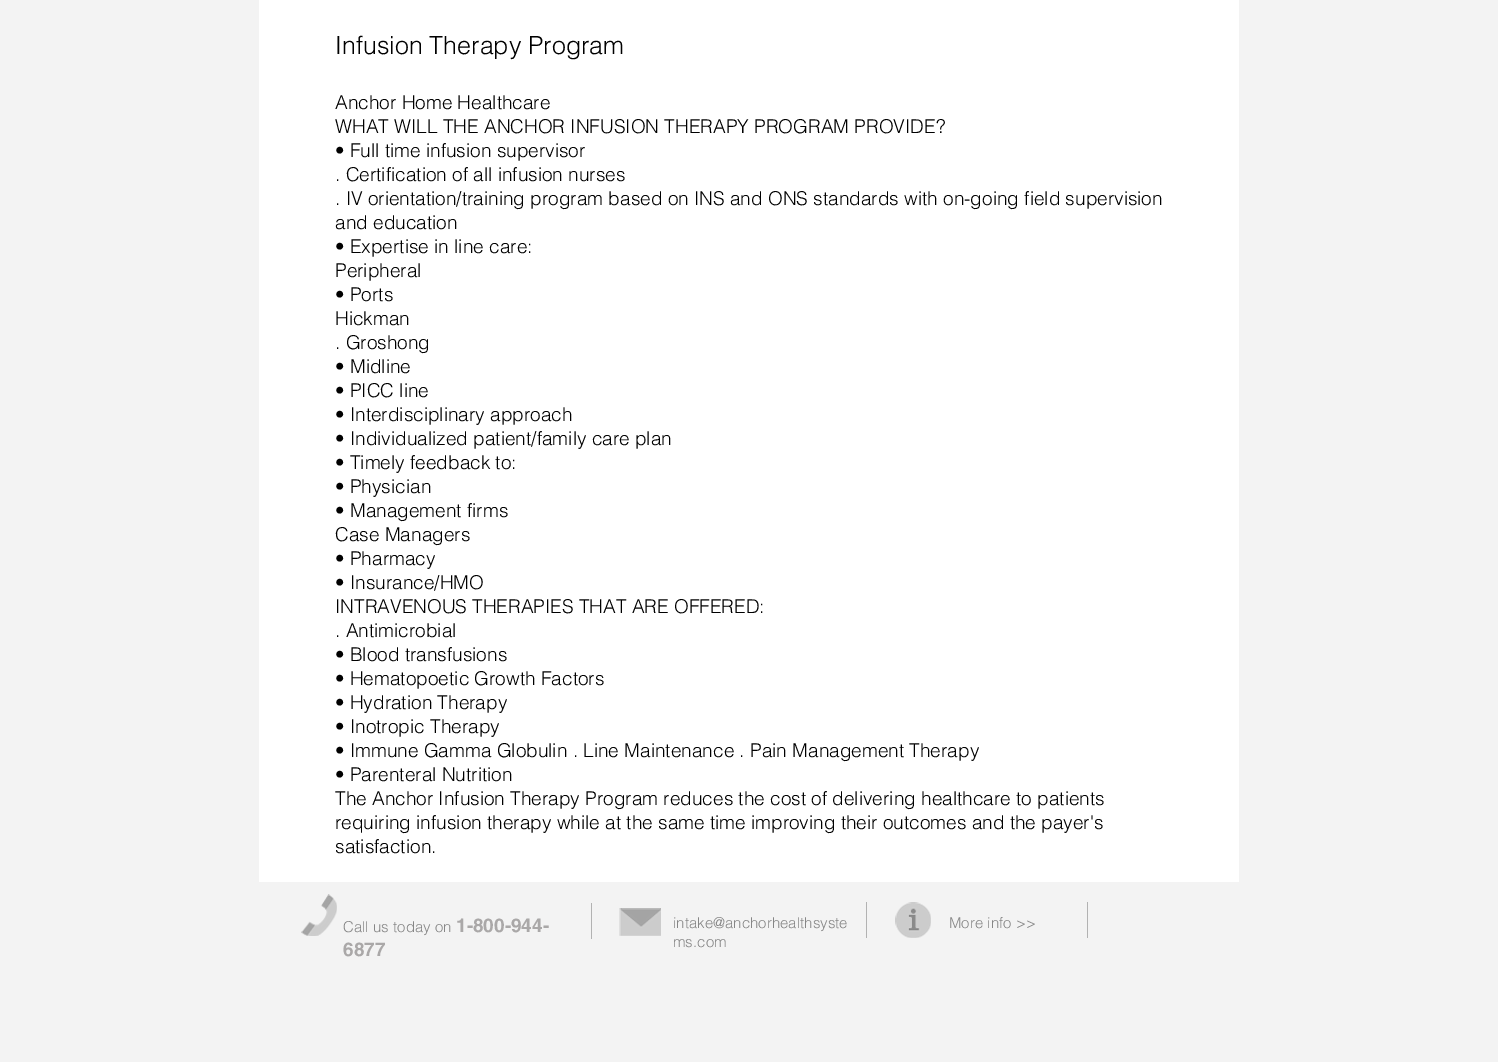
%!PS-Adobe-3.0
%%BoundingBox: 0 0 1498 1062
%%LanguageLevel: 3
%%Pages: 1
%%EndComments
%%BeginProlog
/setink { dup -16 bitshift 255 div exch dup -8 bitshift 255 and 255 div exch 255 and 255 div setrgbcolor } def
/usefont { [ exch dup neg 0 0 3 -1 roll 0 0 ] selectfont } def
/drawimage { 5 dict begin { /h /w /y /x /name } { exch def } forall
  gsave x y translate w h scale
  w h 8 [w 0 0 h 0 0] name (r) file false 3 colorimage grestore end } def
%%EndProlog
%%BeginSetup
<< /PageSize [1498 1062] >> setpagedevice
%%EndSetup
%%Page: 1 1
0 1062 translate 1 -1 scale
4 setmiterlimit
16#F3F3F3 setink
0 0 1498 1062 rectfill
16#FFFFFF setink
259 0 980 882 rectfill
/helvetica-Light 25 usefont
16#000000 setink
335 54 moveto (Infusion Therapy Program) show
/helvetica-Light 19 usefont
[
    [(Anchor Home Healthcare) 335 109]
    [(WHAT WILL THE ANCHOR INFUSION THERAPY PROGRAM PROVIDE?) 335 133]
    [(• Full time infusion supervisor) 335 157]
    [(. Certification of all infusion nurses) 335 181]
    [(. IV orientation/training program based on INS and ONS standards with on-going field supervision) 335 205]
    [(and education) 335 229]
    [(• Expertise in line care:) 335 253]
    [(Peripheral) 335 277]
    [(• Ports) 335 301]
    [(Hickman) 335 325]
    [(. Groshong) 335 349]
    [(• Midline) 335 373]
    [(• PICC line) 335 397]
    [(• Interdisciplinary approach) 335 421]
    [(• Individualized patient/family care plan) 335 445]
    [(• Timely feedback to:) 335 469]
    [(• Physician) 335 493]
    [(• Management firms) 335 517]
    [(Case Managers) 335 541]
    [(• Pharmacy) 335 565]
    [(• Insurance/HMO) 335 589]
    [(INTRAVENOUS THERAPIES THAT ARE OFFERED:) 335 613]
    [(. Antimicrobial) 335 637]
    [(• Blood transfusions) 335 661]
    [(• Hematopoetic Growth Factors) 335 685]
    [(• Hydration Therapy) 335 709]
    [(• Inotropic Therapy) 335 733]
    [(• Immune Gamma Globulin . Line Maintenance . Pain Management Therapy) 335 757]
    [(• Parenteral Nutrition) 335 781]
    [(The Anchor Infusion Therapy Program reduces the cost of delivering healthcare to patients) 335 805]
    [(requiring infusion therapy while at the same time improving their outcomes and the payer's) 335 829]
    [(satisfaction.) 335 853]
] { aload pop moveto show } forall
(img1.raw) 301 894 36 42 drawimage
/helvetica-Light 15 usefont
16#868686 setink
343 932 moveto (Call us today on) show
/helvetica-Bold 19 usefont
16#AAA8A8 setink
456 932 moveto (1-800-944-) show
343 956 moveto (6877) show
16#B2B2B2 setink
591 903 1 36 rectfill
(img2.raw) 619 908 42 28 drawimage
/helvetica-Light 15 usefont
16#868686 setink
673 928 moveto (intake@anchorhealthsyste) show
673 947 moveto (ms.com) show
16#B2B2B2 setink
866 902 1 36 rectfill
(img3.raw) 895 902 36 36 drawimage
16#868686 setink
949 928 moveto (More info >>) show
16#B2B2B2 setink
1087 902 1 36 rectfill
showpage
%%EOF
